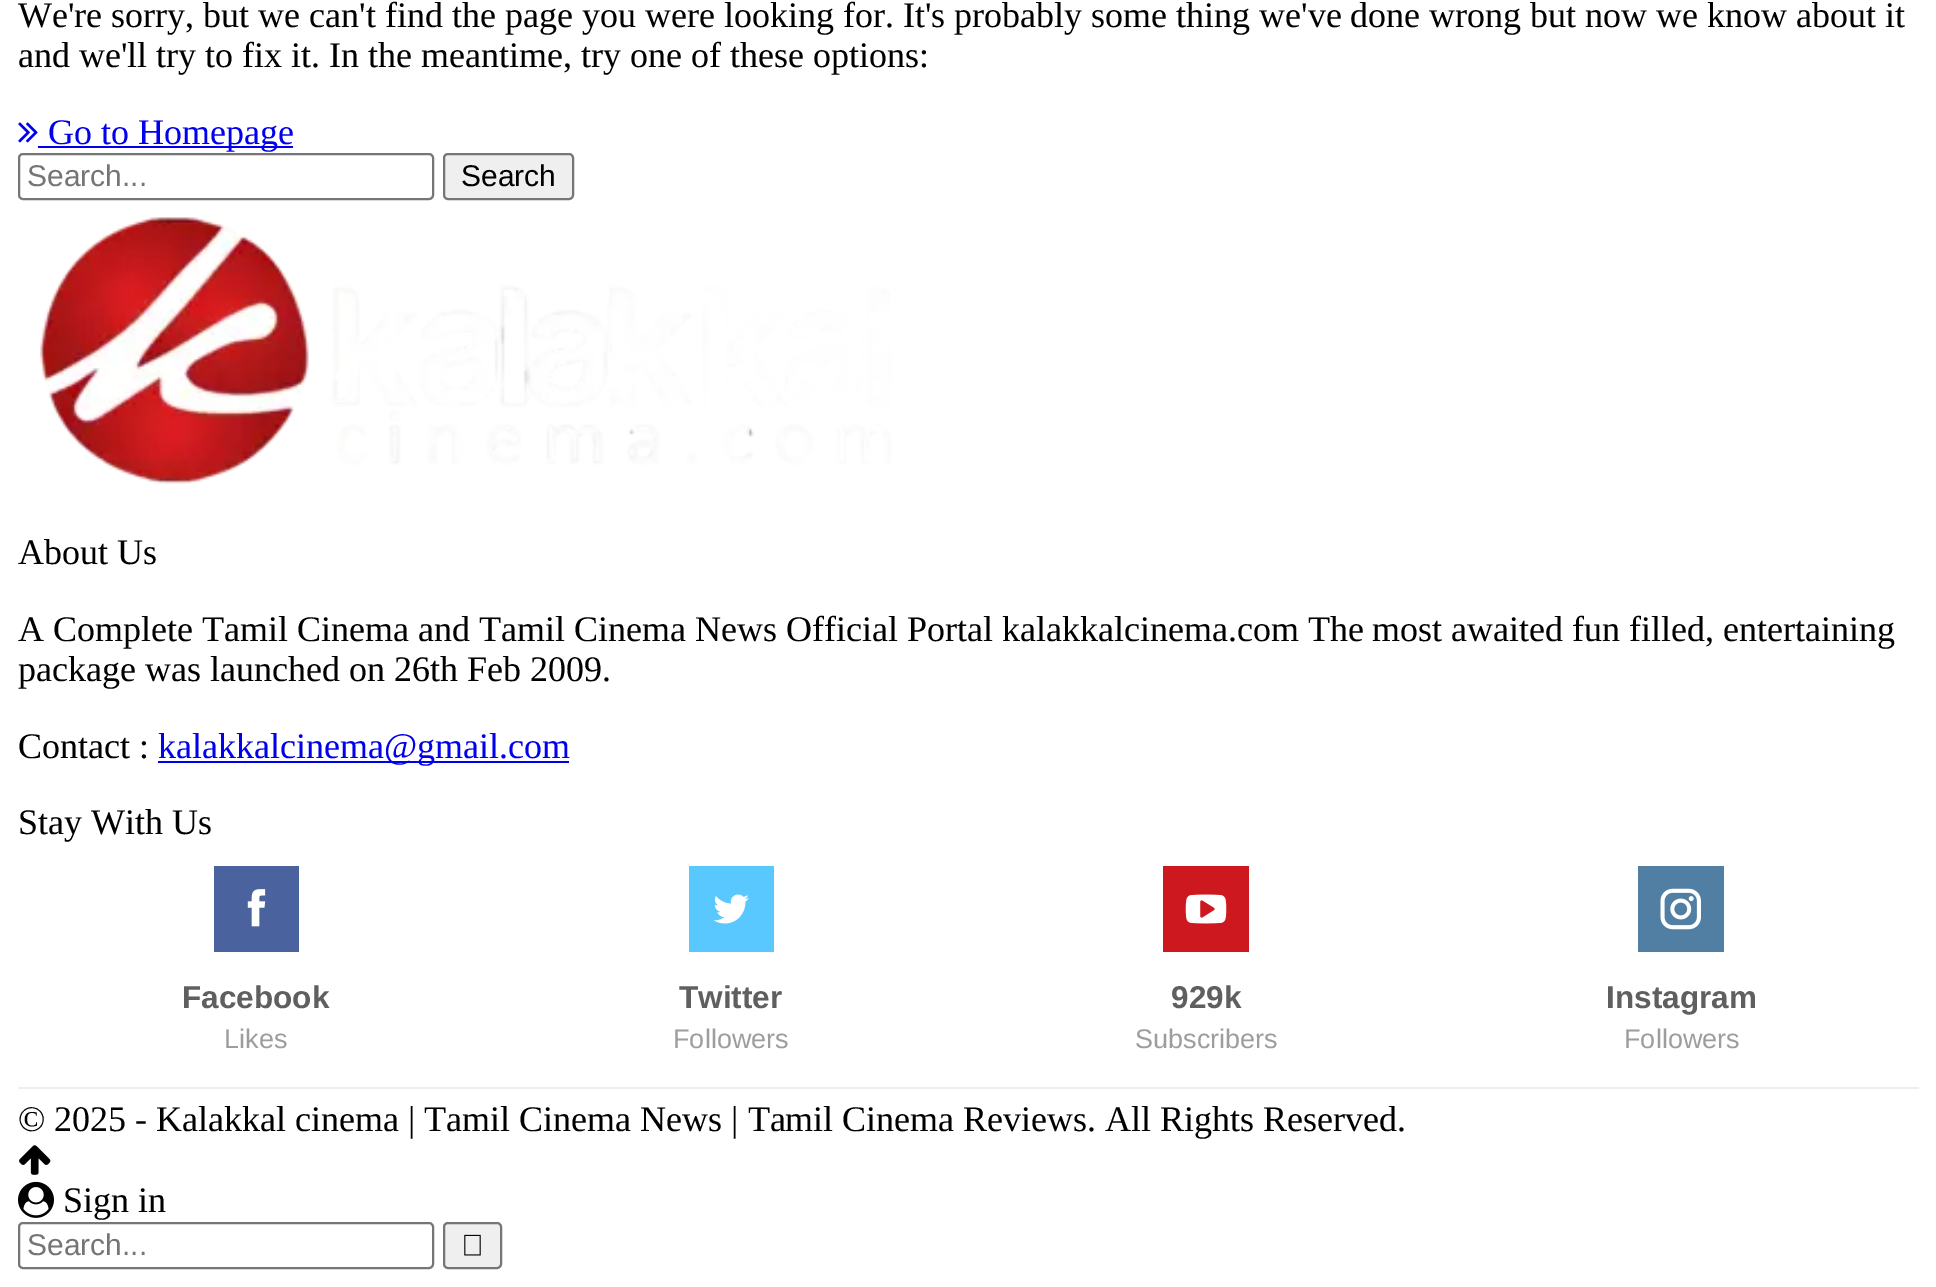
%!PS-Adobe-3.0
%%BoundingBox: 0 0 1936 1287
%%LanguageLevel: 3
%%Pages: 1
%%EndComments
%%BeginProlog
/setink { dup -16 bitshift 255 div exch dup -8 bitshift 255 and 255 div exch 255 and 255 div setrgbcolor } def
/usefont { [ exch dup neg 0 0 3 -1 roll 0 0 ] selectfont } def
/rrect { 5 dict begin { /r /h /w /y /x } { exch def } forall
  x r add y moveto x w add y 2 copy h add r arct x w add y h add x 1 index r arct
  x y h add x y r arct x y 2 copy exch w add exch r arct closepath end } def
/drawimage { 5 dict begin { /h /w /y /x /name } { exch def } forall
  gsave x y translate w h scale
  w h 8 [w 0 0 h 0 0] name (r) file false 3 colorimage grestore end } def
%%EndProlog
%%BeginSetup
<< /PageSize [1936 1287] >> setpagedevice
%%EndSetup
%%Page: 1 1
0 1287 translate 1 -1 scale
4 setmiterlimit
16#FFFFFF setink
0 0 1936 1287 rectfill
/LiberationSerif-Regular 36 usefont
16#000000 setink
18 27 moveto (We're sorry, but we can't find the page you were looking for. It's probably some thing we've done wrong but now we know about it) show
18 67 moveto (and we'll try to fix it. In the meantime, try one of these options:) show
(img1.raw) 18 122 20 21 drawimage
16#0000EE setink
38 146 255 2 rectfill
48 144 moveto (Go to Homepage) show
16#767676 setink
2 setlinewidth
19 154 414 45 4 rrect stroke
/LiberationSans-Regular 30 usefont
16#757575 setink
27 186 moveto (Search...) show
16#EFEFEF setink
444 154 129 45 4 rrect gsave fill grestore
16#767676 setink
stroke
16#000000 setink
461 186 moveto (Search) show
(img2.raw) 40 217 851 267 drawimage
/LiberationSerif-Regular 36 usefont
[
    [(About Us) 18 564]
    [(A Complete Tamil Cinema and Tamil Cinema News Official Portal kalakkalcinema.com The most awaited fun filled, entertaining) 18 641]
    [(package was launched on 26th Feb 2009.) 18 681]
    [(Contact :) 18 758]
] { aload pop moveto show } forall
16#0000EE setink
158 761 411 2 rectfill
158 758 moveto (kalakkalcinema@gmail.com) show
16#000000 setink
18 834 moveto (Stay With Us) show
16#EEEEEE setink
18 1087 1901 2 rectfill
16#4A639F setink
214 866 85 86 rectfill
(img3.raw) 247 889 19 38 drawimage
/LiberationSans-Bold 31.5 usefont
16#5F5F5F setink
182 1008 moveto (Facebook) show
/LiberationSans-Regular 27 usefont
16#9D9D9D setink
224 1048 moveto (Likes) show
16#59C8FF setink
689 866 85 86 rectfill
(img4.raw) 713 894 36 30 drawimage
/LiberationSans-Bold 31.5 usefont
16#5F5F5F setink
679 1008 moveto (Twitter) show
/LiberationSans-Regular 27 usefont
16#9D9D9D setink
673 1048 moveto (Followers) show
16#CC181E setink
1163 866 86 86 rectfill
(img5.raw) 1185 894 42 30 drawimage
/LiberationSans-Bold 31.5 usefont
16#5F5F5F setink
1171 1008 moveto (929k) show
/LiberationSans-Regular 27 usefont
16#9D9D9D setink
1135 1048 moveto (Subscribers) show
16#517FA4 setink
1638 866 86 86 rectfill
(img6.raw) 1660 888 41 42 drawimage
/LiberationSans-Bold 31.5 usefont
16#5F5F5F setink
1606 1008 moveto (Instagram) show
/LiberationSans-Regular 27 usefont
16#9D9D9D setink
1624 1048 moveto (Followers) show
/LiberationSerif-Regular 36 usefont
16#000000 setink
18 1131 moveto (© 2025 - Kalakkal cinema | Tamil Cinema News | Tamil Cinema Reviews. All Rights Reserved.) show
(img7.raw) 19 1145 32 30 drawimage
(img8.raw) 18 1181 36 37 drawimage
63 1212 moveto (Sign in) show
16#767676 setink
19 1223 414 45 4 rrect stroke
/LiberationSans-Regular 30 usefont
16#757575 setink
27 1255 moveto (Search...) show
16#EFEFEF setink
444 1223 57 45 4 rrect gsave fill grestore
16#767676 setink
stroke
(img9.raw) 464 1234 17 22 drawimage
showpage
%%EOF
